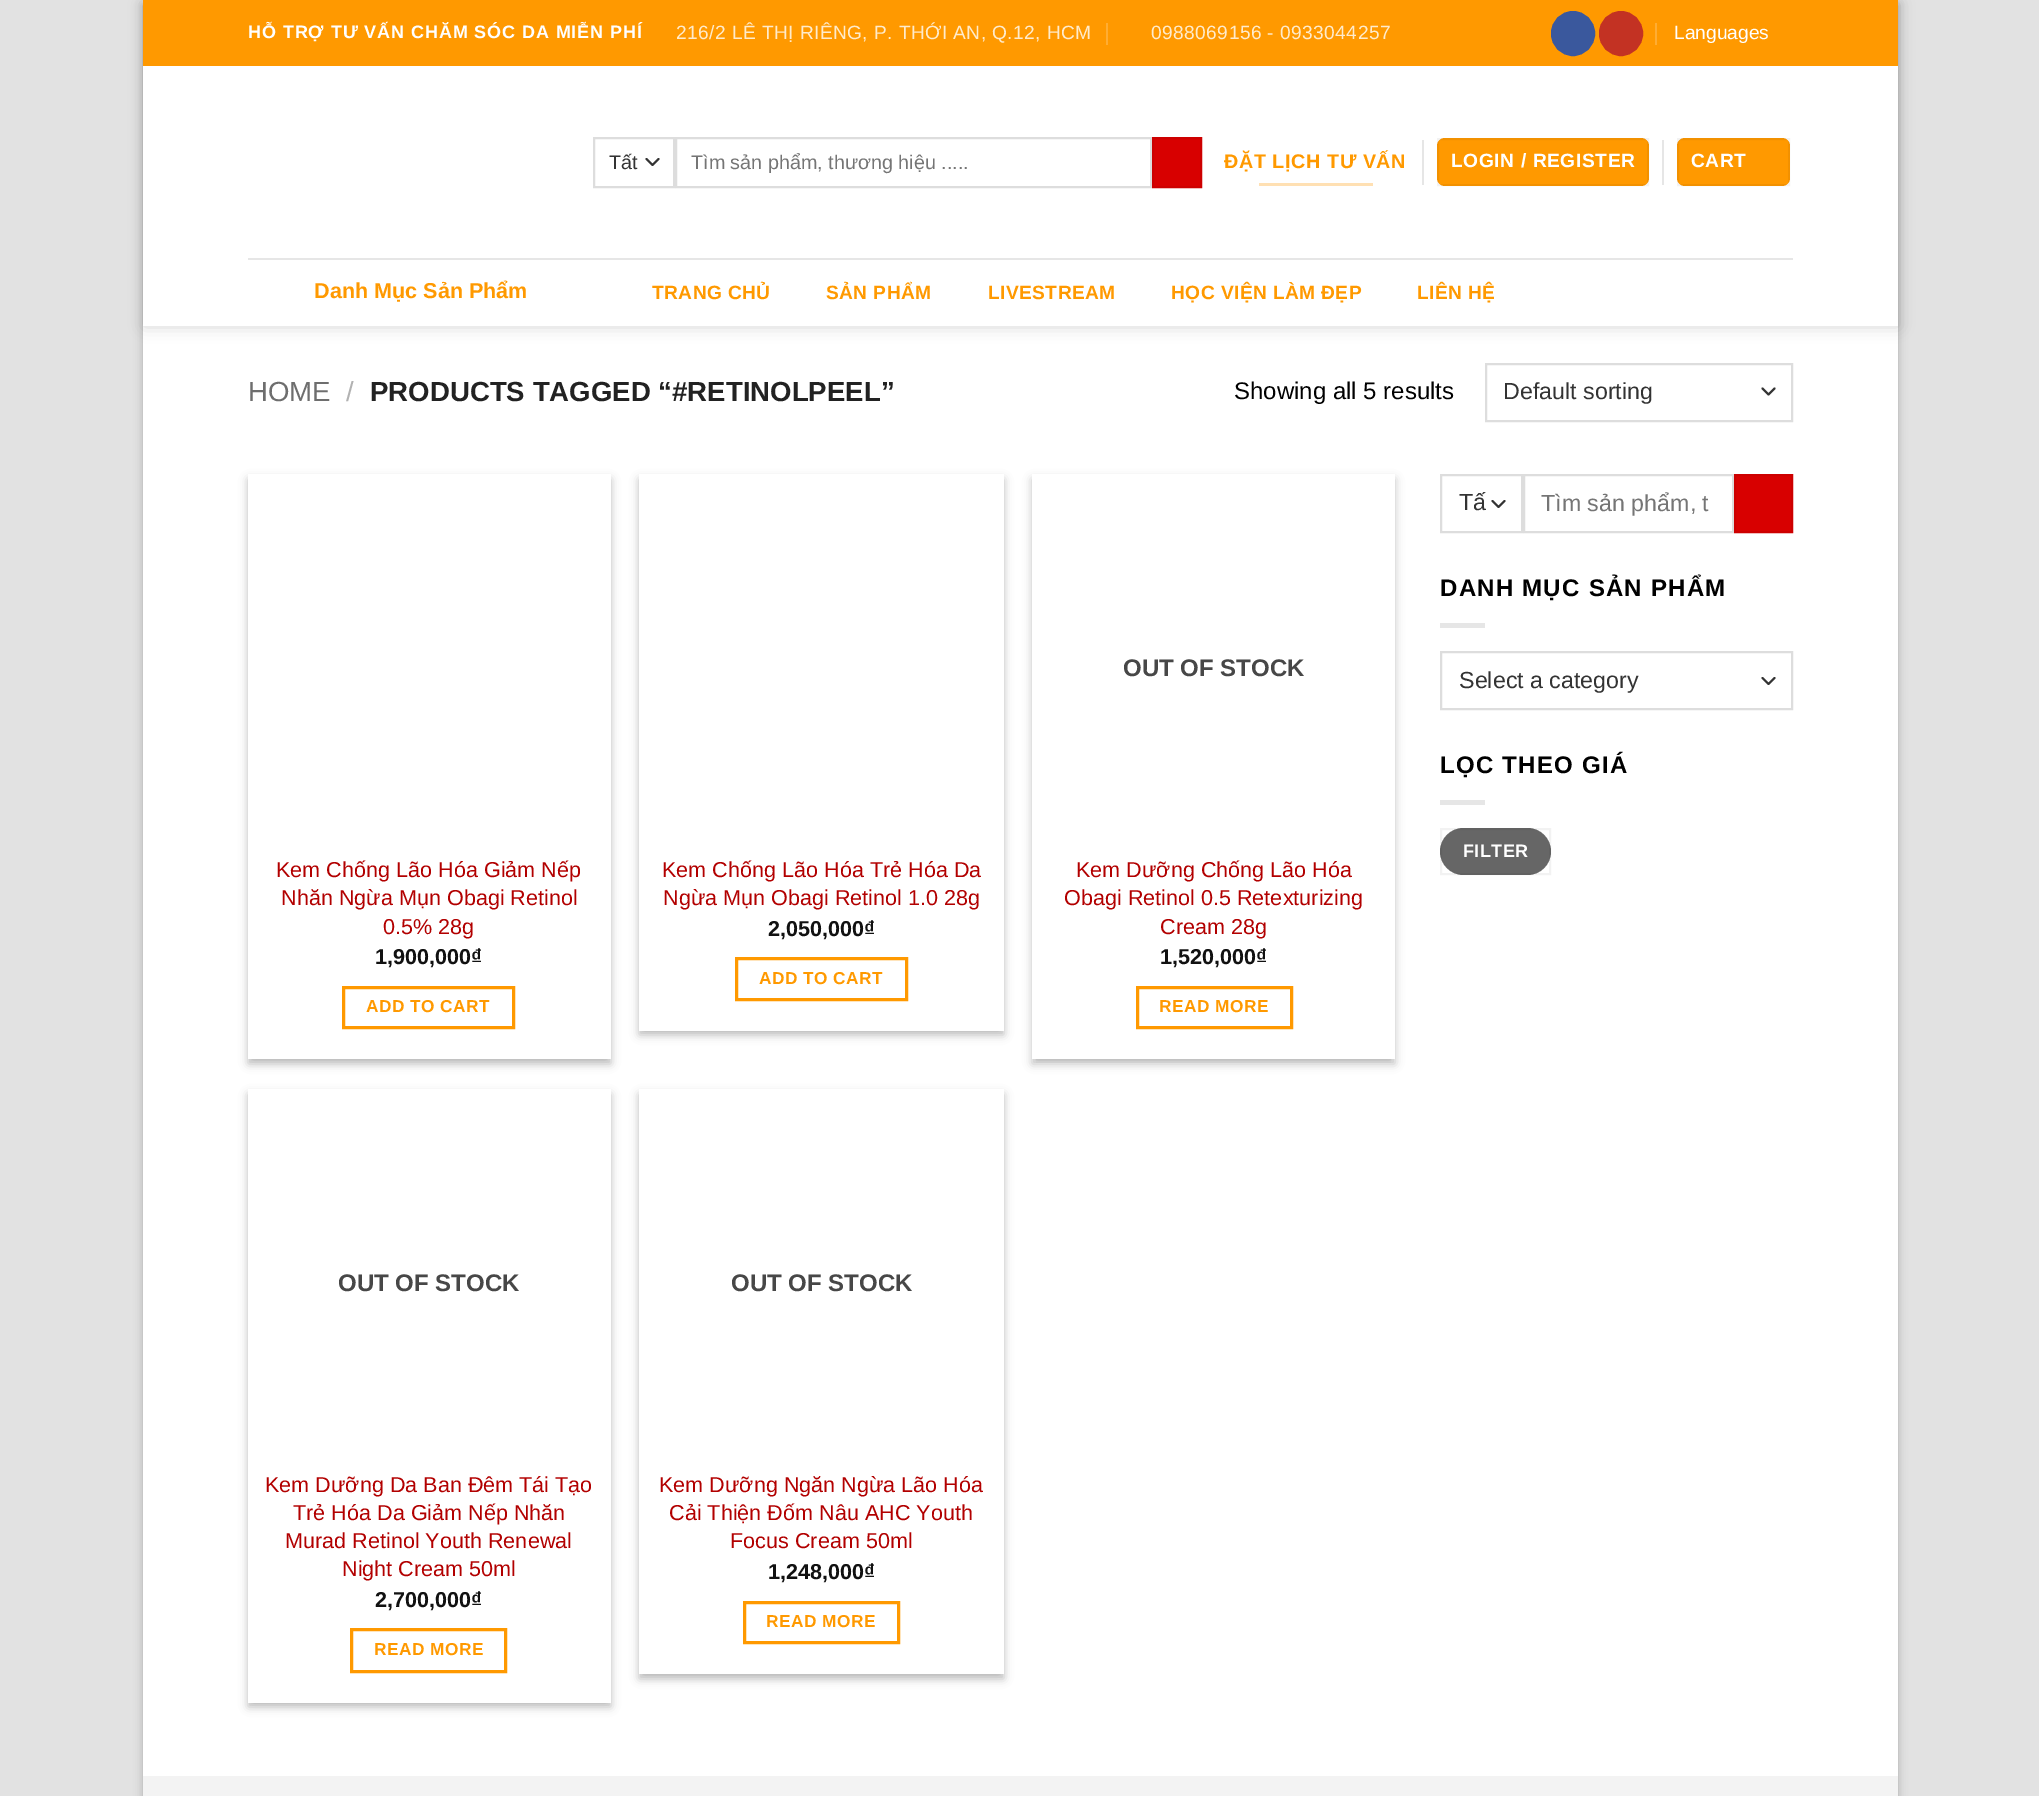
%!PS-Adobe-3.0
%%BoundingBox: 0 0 2039 1796
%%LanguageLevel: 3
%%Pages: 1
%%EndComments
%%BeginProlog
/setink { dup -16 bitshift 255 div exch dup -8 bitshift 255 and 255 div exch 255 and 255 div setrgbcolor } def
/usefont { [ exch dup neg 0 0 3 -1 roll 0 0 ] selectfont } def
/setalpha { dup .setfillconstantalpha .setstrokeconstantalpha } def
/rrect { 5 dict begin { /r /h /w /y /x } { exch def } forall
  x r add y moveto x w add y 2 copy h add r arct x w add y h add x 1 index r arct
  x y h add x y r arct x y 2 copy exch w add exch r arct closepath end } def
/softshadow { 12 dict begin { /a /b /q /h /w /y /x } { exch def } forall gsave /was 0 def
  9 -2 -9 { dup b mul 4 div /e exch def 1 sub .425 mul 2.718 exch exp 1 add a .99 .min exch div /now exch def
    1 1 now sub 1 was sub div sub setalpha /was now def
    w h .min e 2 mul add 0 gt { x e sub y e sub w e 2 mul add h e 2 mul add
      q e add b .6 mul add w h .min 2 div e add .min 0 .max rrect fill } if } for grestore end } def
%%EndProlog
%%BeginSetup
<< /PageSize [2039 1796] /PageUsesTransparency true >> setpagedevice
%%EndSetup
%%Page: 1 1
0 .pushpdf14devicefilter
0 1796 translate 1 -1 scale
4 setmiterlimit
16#E2E2E2 setink
0 0 2039 1796 rectfill
16#000000 setink
143 5 1755 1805 0 4.5 0.23 softshadow
16#FFFFFF setink
143 326 1755 1450 rectfill
16#000000 setink
144 2 1755 325 0 7.5 0.15 softshadow
16#FF9900 setink
143 0 1755 66 rectfill
/LiberationSans-Bold 18 usefont
16#FFFFFF setink
248 38 moveto 0.9 0 (HỖ TRỢ TƯ VẤN CHĂM SÓC DA MIỄN PHÍ) ashow
/LiberationSans-Regular 19.2 usefont
16#FFEBCC setink
676 39 moveto 0.4 0 (216/2 LÊ THỊ RIÊNG, P. THỚI AN, Q.12, HCM) ashow
16#FFAD33 setink
1106 23 2 22 rectfill
16#FFEBCC setink
1151 39 moveto 0.4 0 (0988069156 - 0933044257) ashow
16#3A589D setink
1552 12 42 43 21 rrect gsave fill grestore
2 setlinewidth
stroke
16#C33223 setink
1600 12 42 43 21 rrect gsave fill grestore
stroke
16#FFAD33 setink
1655 23 2 22 rectfill
16#FFFFFF setink
1674 39 moveto (Languages) show
143 66 1755 260 rectfill
16#333333 setink
1 setlinecap
1 setlinejoin
646.5 159 moveto 652.5 165 lineto 658.5 159 lineto stroke
16#DDDDDD setink
0 setlinecap
0 setlinejoin
594 138 80 49 rectstroke
/LiberationSans-Regular 19.75 usefont
16#333333 setink
609 169 moveto (Tất) show
16#DDDDDD setink
676 138 475 49 rectstroke
16#757575 setink
691 169 moveto (Tìm sản phẩm, thương hiệu .....) show
16#D80000 setink
1153 138 moveto 1201 138 lineto 1201 187 lineto 1153 187 lineto closepath gsave fill grestore
16#CD0000 setink
stroke
/LiberationSans-Bold 19.75 usefont
16#FF9900 setink
1224 168 moveto 0.6 0 (ĐẶT LỊCH TƯ VẤN) ashow
16#FFE0B3 setink
1259 183 114 3 rectfill
16#E6E6E6 setink
1422 140 2 45 rectfill
16#FF9900 setink
1437 138 212 48 8 rrect fill
0.05 setalpha
16#000000 setink
1438 139 210 46 rectstroke
/LiberationSans-Bold 19.2 usefont
1 setalpha
16#FFFFFF setink
1451 167 moveto 0.6 0 (LOGIN / REGISTER) ashow
16#E6E6E6 setink
1662 140 2 45 rectfill
16#FF9900 setink
1677 138 113 48 8 rrect fill
0.05 setalpha
16#000000 setink
1678 139 111 46 rectstroke
1 setalpha
16#FFFFFF setink
1691 167 moveto 0.6 0 (CART) ashow
16#E6E6E6 setink
248 258 1545 2 rectfill
/LiberationSans-Bold 21.6 usefont
16#FF9900 setink
314 298 moveto (Danh Mục Sản Phẩm) show
/LiberationSans-Bold 19.2 usefont
652 299 moveto 0.4 0 (TRANG CHỦ) ashow
826 299 moveto 0.4 0 (SẢN PHẨM) ashow
988 299 moveto 0.4 0 (LIVESTREAM) ashow
1171 299 moveto 0.4 0 (HỌC VIỆN LÀM ĐẸP) ashow
1417 299 moveto 0.4 0 (LIÊN HỆ) ashow
/LiberationSans-Regular 27.6 usefont
16#6E6E6E setink
248 401 moveto (HOME) show
16#B2B2B2 setink
346 401 moveto (/) show
/LiberationSans-Bold 27.6 usefont
16#222222 setink
370 401 moveto (PRODUCTS TAGGED “#RETINOLPEEL”) show
/LiberationSans-Regular 24 usefont
16#000000 setink
1234 399 moveto (Showing all 5 results) show
16#333333 setink
1 setlinecap
1 setlinejoin
1762.5 388.5 moveto 1768.5 394.5 lineto 1774.5 388.5 lineto stroke
16#DDDDDD setink
0 setlinecap
0 setlinejoin
1486 364 306 57 rectstroke
/LiberationSans-Regular 23.25 usefont
16#333333 setink
1503 399 moveto (Default sorting) show
16#000000 setink
248 479 363 585 0 4.5 0.23 softshadow
254 485 351 573 0 4.5 0.16 softshadow
16#FFFFFF setink
248 474 363 585 rectfill
/LiberationSans-Regular 21.6 usefont
16#B20000 setink
[
    [(Kem Chống Lão Hóa Giảm Nếp) 276 877]
    [(Nhăn Ngừa Mụn Obagi Retinol) 281 905]
    [(0.5% 28g) 383 934]
] { aload pop moveto show } forall
/LiberationSans-Bold 21.6 usefont
16#111111 setink
375 964 moveto (1,900,000₫) show
16#FF9900 setink
3 setlinewidth
343.5 987.5 170 40 rectstroke
/LiberationSans-Bold 17.25 usefont
366 1012 moveto 0.5 0 (ADD TO CART) ashow
16#000000 setink
639 479 365 556 0 4.5 0.23 softshadow
645 485 353 544 0 4.5 0.16 softshadow
16#FFFFFF setink
639 474 365 557 rectfill
/LiberationSans-Regular 21.6 usefont
16#B20000 setink
662 877 moveto (Kem Chống Lão Hóa Trẻ Hóa Da) show
663 905 moveto (Ngừa Mụn Obagi Retinol 1.0 28g) show
/LiberationSans-Bold 21.6 usefont
16#111111 setink
768 936 moveto (2,050,000₫) show
16#FF9900 setink
736.5 958.5 170 41 rectstroke
/LiberationSans-Bold 17.25 usefont
759 984 moveto 0.5 0 (ADD TO CART) ashow
gsave
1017 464 moveto 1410 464 lineto 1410 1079 lineto 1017 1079 lineto closepath 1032 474 moveto 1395 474 lineto 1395 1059 lineto 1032 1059 lineto closepath eoclip newpath
16#000000 setink
1032 479 363 585 0 4.5 0.23 softshadow
grestore
gsave
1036 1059 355 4 rectclip
16#000000 setink
1038 485 351 573 0 4.5 0.16 softshadow
grestore
/LiberationSans-Bold 24 usefont
16#474747 setink
1123 676 moveto (OUT OF STOCK) show
/LiberationSans-Regular 21.6 usefont
16#B20000 setink
[
    [(Kem Dưỡng Chống Lão Hóa) 1076 877]
    [(Obagi Retinol 0.5 Retexturizing) 1064 905]
    [(Cream 28g) 1160 934]
] { aload pop moveto show } forall
/LiberationSans-Bold 21.6 usefont
16#111111 setink
1160 964 moveto (1,520,000₫) show
16#FF9900 setink
1137.5 987.5 154 40 rectstroke
/LiberationSans-Bold 17.25 usefont
1159 1012 moveto 0.5 0 (READ MORE) ashow
16#000000 setink
248 1094 363 613 0 4.5 0.23 softshadow
254 1100 351 601 0 4.5 0.16 softshadow
16#FFFFFF setink
248 1089 363 614 rectfill
/LiberationSans-Bold 24 usefont
16#474747 setink
338 1291 moveto (OUT OF STOCK) show
/LiberationSans-Regular 21.6 usefont
16#B20000 setink
[
    [(Kem Dưỡng Da Ban Đêm Tái Tạo) 265 1492]
    [(Trẻ Hóa Da Giảm Nếp Nhăn) 293 1520]
    [(Murad Retinol Youth Renewal) 285 1548]
    [(Night Cream 50ml) 342 1576]
] { aload pop moveto show } forall
/LiberationSans-Bold 21.6 usefont
16#111111 setink
375 1607 moveto (2,700,000₫) show
16#FF9900 setink
351.5 1629.5 154 42 rectstroke
/LiberationSans-Bold 17.25 usefont
374 1655 moveto 0.5 0 (READ MORE) ashow
16#000000 setink
639 1094 365 585 0 4.5 0.23 softshadow
645 1100 353 573 0 4.5 0.16 softshadow
16#FFFFFF setink
639 1089 365 585 rectfill
/LiberationSans-Bold 24 usefont
16#474747 setink
731 1291 moveto (OUT OF STOCK) show
/LiberationSans-Regular 21.6 usefont
16#B20000 setink
[
    [(Kem Dưỡng Ngăn Ngừa Lão Hóa) 659 1492]
    [(Cải Thiện Đốm Nâu AHC Youth) 669 1520]
    [(Focus Cream 50ml) 730 1548]
] { aload pop moveto show } forall
/LiberationSans-Bold 21.6 usefont
16#111111 setink
768 1579 moveto (1,248,000₫) show
16#FF9900 setink
744.5 1602.5 154 40 rectstroke
/LiberationSans-Bold 17.25 usefont
766 1627 moveto 0.5 0 (READ MORE) ashow
16#333333 setink
2 setlinewidth
1 setlinecap
1 setlinejoin
1492.5 501 moveto 1498.5 507 lineto 1504.5 501 lineto stroke
16#DDDDDD setink
0 setlinecap
0 setlinejoin
1441 475 81 57 rectstroke
/LiberationSans-Regular 23.25 usefont
16#333333 setink
1459 510 moveto (Tấ) show
16#DDDDDD setink
1524 475 209 57 rectstroke
16#757575 setink
1541 511 moveto (Tìm sản phẩm, t) show
16#D80000 setink
1735 475 moveto 1792 475 lineto 1792 532 lineto 1735 532 lineto closepath gsave fill grestore
16#CD0000 setink
stroke
/LiberationSans-Bold 24 usefont
16#000000 setink
1440 596 moveto 1.25 0 (DANH MỤC SẢN PHẨM) ashow
16#E6E6E6 setink
1440 623 45 5 rectfill
16#333333 setink
1 setlinecap
1 setlinejoin
1762.5 678 moveto 1768.5 684 lineto 1774.5 678 lineto stroke
16#DDDDDD setink
0 setlinecap
0 setlinejoin
1441 652 351 57 rectstroke
/LiberationSans-Regular 23.25 usefont
16#333333 setink
1459 688 moveto (Select a category) show
/LiberationSans-Bold 24 usefont
16#000000 setink
1440 773 moveto 1.25 0 (LỌC THEO GIÁ) ashow
16#E6E6E6 setink
1440 800 45 5 rectfill
16#666666 setink
1440 828 111 47 23.5 rrect fill
0.05 setalpha
16#000000 setink
1441 829 109 45 rectstroke
/LiberationSans-Bold 18 usefont
1 setalpha
16#FFFFFF setink
1463 857 moveto 0.5 0 (FILTER) ashow
16#F3F3F3 setink
143 1776 1755 20 rectfill
.poppdf14devicefilter showpage
%%EOF
